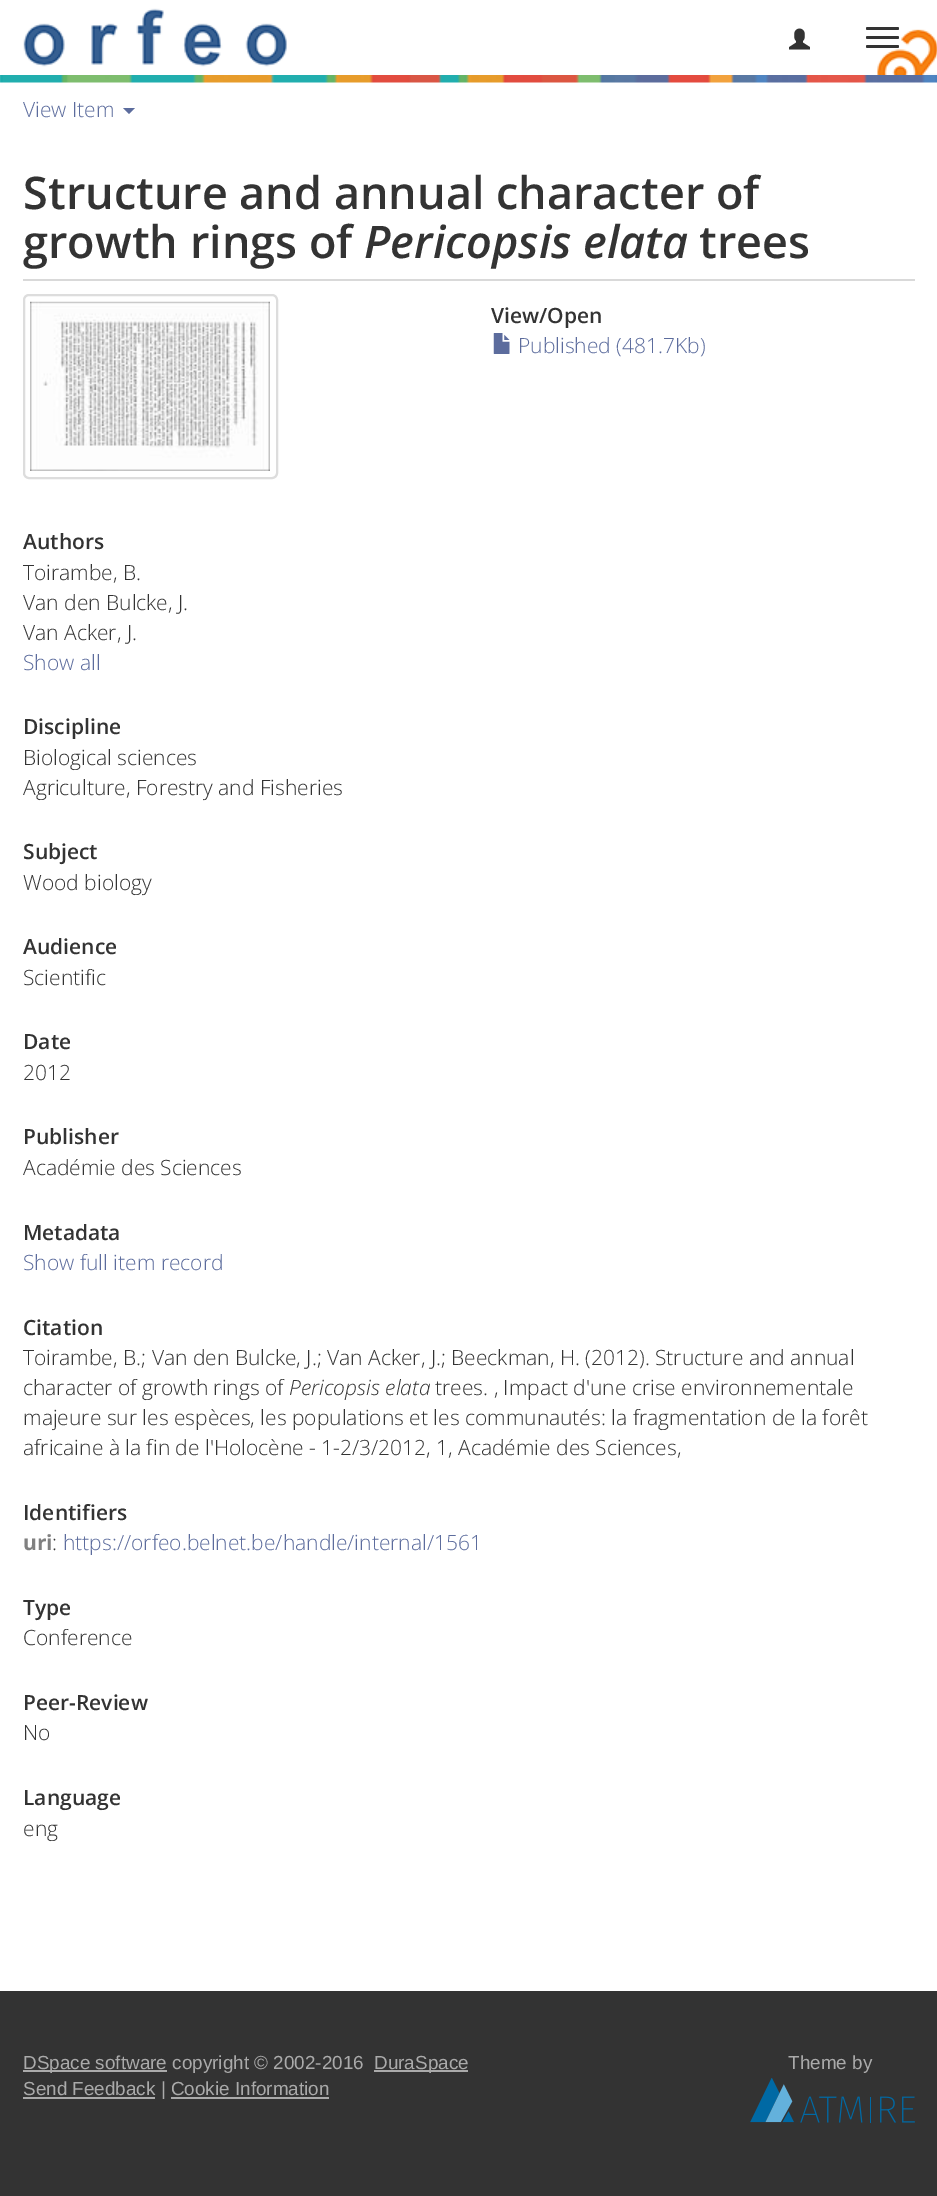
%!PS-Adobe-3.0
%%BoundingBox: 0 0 937 2196
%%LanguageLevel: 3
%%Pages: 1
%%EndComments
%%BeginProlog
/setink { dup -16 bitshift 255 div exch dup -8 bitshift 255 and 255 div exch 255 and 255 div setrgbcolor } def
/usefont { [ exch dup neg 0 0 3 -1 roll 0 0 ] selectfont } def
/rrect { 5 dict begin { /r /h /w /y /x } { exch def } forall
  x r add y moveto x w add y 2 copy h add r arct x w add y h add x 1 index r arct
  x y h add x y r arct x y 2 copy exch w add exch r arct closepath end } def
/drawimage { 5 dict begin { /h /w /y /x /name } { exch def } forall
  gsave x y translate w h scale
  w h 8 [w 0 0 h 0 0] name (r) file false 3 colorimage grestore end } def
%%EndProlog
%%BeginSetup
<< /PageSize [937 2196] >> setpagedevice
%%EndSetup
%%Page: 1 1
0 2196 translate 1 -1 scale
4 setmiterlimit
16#FFFFFF setink
0 0 937 2196 rectfill
(img1.raw) 877 29 60 46 drawimage
(img2.raw) 23 8 264 59 drawimage
(img3.raw) 789 28 21 22 drawimage
16#333333 setink
866 27 33 3 1.5 rrect fill
866 36 33 3 1.5 rrect fill
866 45 33 3 1.5 rrect fill
(img4.raw) 0 75 937 8 drawimage
/OpenSans-Light 21 usefont
16#5C6C9D setink
23 117 moveto (View Item) show
123 108 moveto 135 108 lineto 129 114 lineto closepath fill
16#D9D9D9 setink
23 279 892 2 rectfill
/OpenSans-SemiBold 45 usefont
16#333333 setink
23 209 moveto (Structure and annual character of) show
23 258 moveto (growth rings of) show
/OpenSans-SemiBoldItalic 45 usefont
364 258 moveto (Pericopsis elata) show
/OpenSans-SemiBold 45 usefont
699 258 moveto (trees) show
16#DDDDDD setink
2 setlinewidth
24 295 253 183 5 rrect stroke
(img5.raw) 30 301 240 170 drawimage
/OpenSans-SemiBold 21 usefont
16#333333 setink
491 323 moveto (View/Open) show
(img6.raw) 493 333 17 21 drawimage
/OpenSans-Light 21 usefont
16#5C6C9D setink
518 353 moveto (Published \(481.7Kb\)) show
/OpenSans-SemiBold 21 usefont
16#333333 setink
23 549 moveto (Authors) show
/OpenSans-Light 21 usefont
[
    [(Toirambe, B.) 23 580]
    [(Van den Bulcke, J.) 23 610]
    [(Van Acker, J.) 23 640]
] { aload pop moveto show } forall
16#5C6C9D setink
23 670 moveto (Show all) show
/OpenSans-SemiBold 21 usefont
16#333333 setink
23 734 moveto (Discipline) show
/OpenSans-Light 21 usefont
23 765 moveto (Biological sciences) show
23 795 moveto (Agriculture, Forestry and Fisheries) show
/OpenSans-SemiBold 21 usefont
23 859 moveto (Subject) show
/OpenSans-Light 21 usefont
23 890 moveto (Wood biology) show
/OpenSans-SemiBold 21 usefont
23 954 moveto (Audience) show
/OpenSans-Light 21 usefont
23 985 moveto (Scientific) show
/OpenSans-SemiBold 21 usefont
23 1049 moveto (Date) show
/OpenSans-Light 21 usefont
23 1080 moveto (2012) show
/OpenSans-SemiBold 21 usefont
23 1144 moveto (Publisher) show
/OpenSans-Light 21 usefont
23 1175 moveto (Académie des Sciences) show
/OpenSans-SemiBold 21 usefont
23 1240 moveto (Metadata) show
/OpenSans-Light 21 usefont
16#5C6C9D setink
23 1270 moveto (Show full item record) show
/OpenSans-SemiBold 21 usefont
16#333333 setink
23 1335 moveto (Citation) show
/OpenSans-Light 21 usefont
23 1365 moveto (Toirambe, B.; Van den Bulcke, J.; Van Acker, J.; Beeckman, H. \(2012\). Structure and annual) show
23 1395 moveto (character of growth rings of) show
/OpenSans-LightItalic 21 usefont
289 1395 moveto (Pericopsis elata) show
/OpenSans-Light 21 usefont
[
    [(trees. , Impact d'une crise environnementale) 435 1395]
    [(majeure sur les espèces, les populations et les communautés: la fragmentation de la forêt) 23 1425]
    [(africaine à la fin de l'Holocène - 1-2/3/2012, 1, Académie des Sciences,) 23 1455]
] { aload pop moveto show } forall
/OpenSans-SemiBold 21 usefont
23 1520 moveto (Identifiers) show
/OpenSans-Bold 21 usefont
16#808080 setink
23 1550 moveto (uri) show
/OpenSans-Light 21 usefont
16#333333 setink
52 1550 moveto (:) show
16#5C6C9D setink
63 1550 moveto (https://orfeo.belnet.be/handle/internal/1561) show
/OpenSans-SemiBold 21 usefont
16#333333 setink
23 1615 moveto (Type) show
/OpenSans-Light 21 usefont
23 1645 moveto (Conference) show
/OpenSans-SemiBold 21 usefont
23 1710 moveto (Peer-Review) show
/OpenSans-Light 21 usefont
23 1740 moveto (No) show
/OpenSans-SemiBold 21 usefont
23 1805 moveto (Language) show
/OpenSans-Light 21 usefont
23 1836 moveto (eng) show
0 1991 937 205 rectfill
16#AAAAAA setink
23 2070 144 2 rectfill
/LiberationSans-Regular 18.9 usefont
23 2069 moveto (DSpace software copyright © 2002-2016) show
374 2070 94 2 rectfill
374 2069 moveto (DuraSpace) show
23 2097 132 2 rectfill
23 2095 moveto (Send Feedback | Cookie Information) show
171 2097 158 2 rectfill
788 2069 moveto (Theme by) show
(img7.raw) 750 2078 165 45 drawimage
showpage
%%EOF
